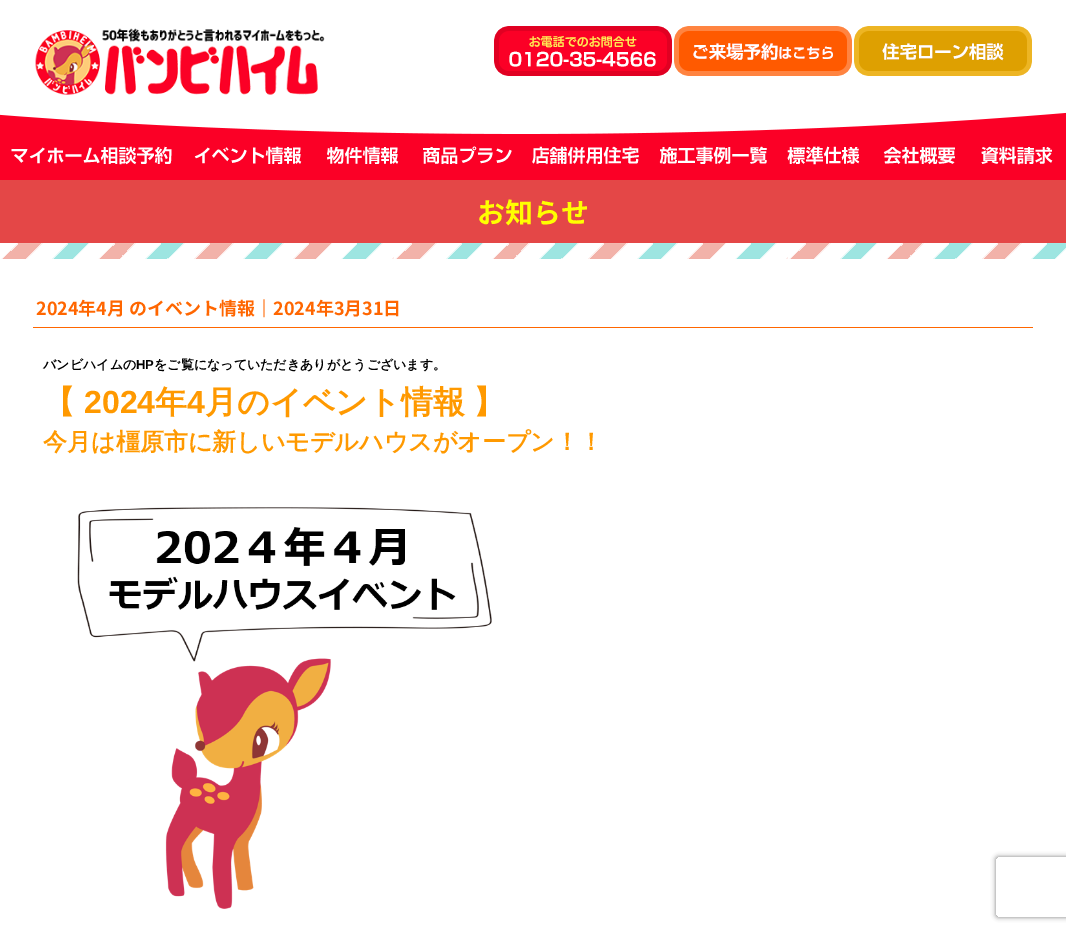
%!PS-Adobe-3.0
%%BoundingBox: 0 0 1066 931
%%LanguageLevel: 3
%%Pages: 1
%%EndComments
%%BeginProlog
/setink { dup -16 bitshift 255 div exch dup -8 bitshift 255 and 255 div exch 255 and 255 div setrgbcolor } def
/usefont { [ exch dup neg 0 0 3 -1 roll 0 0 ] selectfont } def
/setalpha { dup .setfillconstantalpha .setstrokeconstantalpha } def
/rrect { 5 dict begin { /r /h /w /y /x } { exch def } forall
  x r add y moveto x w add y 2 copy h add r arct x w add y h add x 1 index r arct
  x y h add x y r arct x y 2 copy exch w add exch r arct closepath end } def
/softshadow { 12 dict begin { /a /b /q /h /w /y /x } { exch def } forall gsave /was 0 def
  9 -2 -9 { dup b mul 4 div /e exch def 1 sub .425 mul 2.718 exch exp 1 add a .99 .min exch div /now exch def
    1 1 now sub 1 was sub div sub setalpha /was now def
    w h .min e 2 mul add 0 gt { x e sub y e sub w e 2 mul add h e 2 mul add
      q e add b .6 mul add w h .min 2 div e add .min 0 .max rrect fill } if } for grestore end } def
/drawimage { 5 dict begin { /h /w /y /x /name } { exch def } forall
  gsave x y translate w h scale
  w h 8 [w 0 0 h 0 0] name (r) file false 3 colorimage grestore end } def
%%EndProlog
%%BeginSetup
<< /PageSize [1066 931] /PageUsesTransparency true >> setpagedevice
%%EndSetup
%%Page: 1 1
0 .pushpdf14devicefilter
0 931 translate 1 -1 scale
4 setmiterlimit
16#FFFFFF setink
0 0 1066 931 rectfill
(img1.raw) 0 112 1066 68 drawimage
(img2.raw) 35 28 290 67 drawimage
(img3.raw) 494 26 178 50 drawimage
(img4.raw) 674 26 178 50 drawimage
(img5.raw) 854 26 178 50 drawimage
(img6.raw) 11 146 161 19 drawimage
(img7.raw) 194 146 108 18 drawimage
(img8.raw) 327 146 72 18 drawimage
(img9.raw) 423 146 89 18 drawimage
(img10.raw) 532 146 107 18 drawimage
(img11.raw) 659 146 108 18 drawimage
(img12.raw) 787 146 73 19 drawimage
(img13.raw) 883 147 72 18 drawimage
(img14.raw) 981 146 72 19 drawimage
16#E44747 setink
0 180 1066 63 rectfill
/NotoSansJP-Bold 28 usefont
16#FFFF00 setink
477 223 moveto (お知らせ) show
(img15.raw) 1 243 1065 16 drawimage
16#FF6600 setink
33 327 1000 1 rectfill
/NotoSansJP-Bold 18 usefont
36 315 moveto (2024年4月 のイベント情報｜2024年3月31日) show
/WenQuanYiZenHei-Bold 13 usefont
16#000000 setink
43 369 moveto (バンビハイムの) show
/LiberationSans-Bold 13 usefont
136 369 moveto (HP) show
/WenQuanYiZenHei-Bold 13 usefont
154 369 moveto (をご覧になっていただきありがとうございます。) show
/WenQuanYiZenHei-Bold 32 usefont
16#FF9900 setink
43 413 moveto (【) show
/LiberationSans-Bold 32 usefont
84 413 moveto (2024) show
/WenQuanYiZenHei-Bold 32 usefont
155 413 moveto (年) show
/LiberationSans-Bold 32 usefont
187 413 moveto (4) show
/WenQuanYiZenHei-Bold 32 usefont
205 413 moveto (月) show
237 413 moveto -1 0 32 (のイベント情報 】) widthshow
/WenQuanYiZenHei-Bold 24 usefont
43 450 moveto (今月は橿原市に新しいモデルハウスがオープン！！) show
(img16.raw) 77 507 415 402 drawimage
gsave
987 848 moveto 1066 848 lineto 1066 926 lineto 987 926 lineto closepath 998 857 moveto 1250 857 lineto 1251 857 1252 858 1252 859 curveto 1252 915 lineto 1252 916 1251 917 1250 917 curveto 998 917 lineto 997 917 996 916 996 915 curveto 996 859 lineto 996 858 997 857 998 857 curveto closepath eoclip newpath
16#808080 setink
996 857 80 60 2 2.5 1 softshadow
grestore
.poppdf14devicefilter showpage
%%EOF
